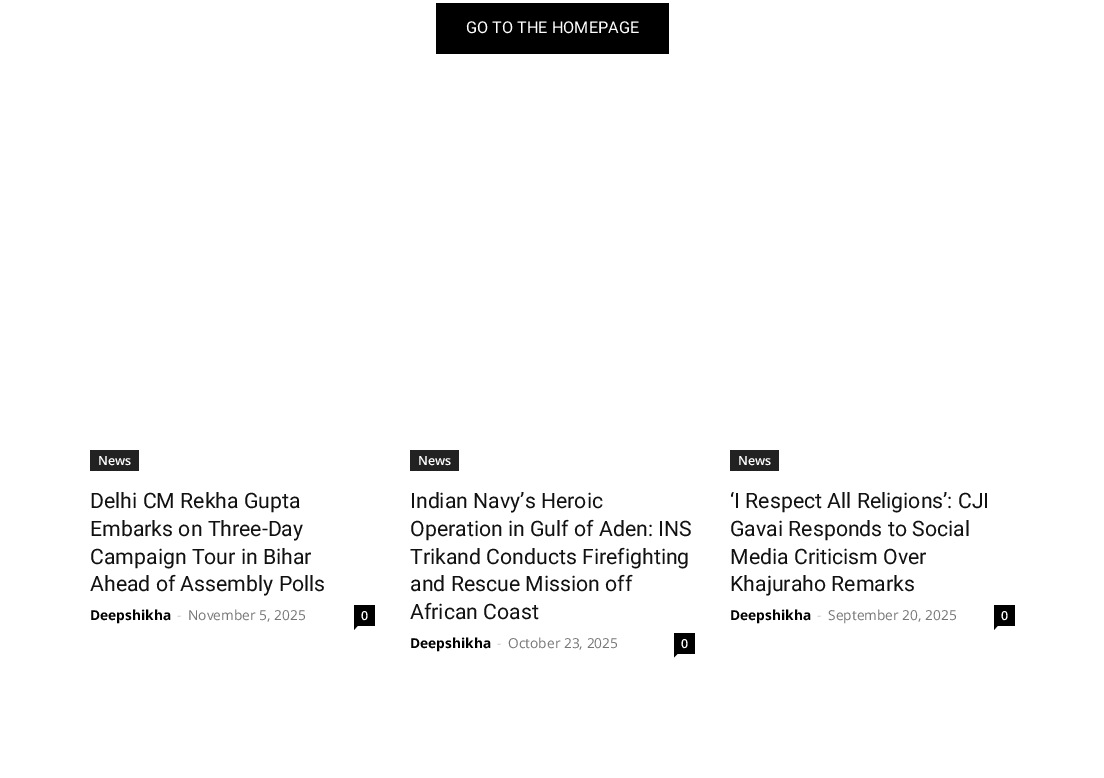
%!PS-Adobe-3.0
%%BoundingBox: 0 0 1104 778
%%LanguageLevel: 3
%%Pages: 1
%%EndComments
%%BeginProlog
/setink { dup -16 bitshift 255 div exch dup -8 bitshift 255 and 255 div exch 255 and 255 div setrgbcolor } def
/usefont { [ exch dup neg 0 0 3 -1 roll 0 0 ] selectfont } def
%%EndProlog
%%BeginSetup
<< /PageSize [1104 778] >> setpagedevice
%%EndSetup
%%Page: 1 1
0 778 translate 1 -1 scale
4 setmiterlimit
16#FFFFFF setink
0 0 1104 778 rectfill
16#000000 setink
436 3 233 51 rectfill
/Roboto-Regular 16.25 usefont
16#FFFFFF setink
466 33 moveto (GO TO THE HOMEPAGE) show
16#222222 setink
90 450 49 21 rectfill
/OpenSans-SemiBold 12.5 usefont
16#FFFFFF setink
98 465 moveto (News) show
/Roboto-Regular 21.25 usefont
16#111111 setink
[
    [(Delhi CM Rekha Gupta) 90 508]
    [(Embarks on Three-Day) 90 536]
    [(Campaign Tour in Bihar) 90 564]
    [(Ahead of Assembly Polls) 90 591]
] { aload pop moveto show } forall
/OpenSans-Bold 13.75 usefont
16#000000 setink
90 620 moveto (Deepshikha) show
/OpenSans-Regular 13.75 usefont
16#CCCCCC setink
177 620 moveto (-) show
16#767676 setink
188 620 moveto (November 5, 2025) show
16#000000 setink
354 605 21 21 rectfill
/OpenSans-SemiBold 12.5 usefont
16#FFFFFF setink
361 620 moveto (0) show
16#000000 setink
354 626 moveto 357.5 626 lineto 354 630 lineto closepath fill
16#222222 setink
410 450 49 21 rectfill
16#FFFFFF setink
418 465 moveto (News) show
/Roboto-Regular 21.25 usefont
16#111111 setink
[
    [(Indian Navy’s Heroic) 410 508]
    [(Operation in Gulf of Aden: INS) 410 536]
    [(Trikand Conducts Firefighting) 410 564]
    [(and Rescue Mission off) 410 591]
    [(African Coast) 410 619]
] { aload pop moveto show } forall
/OpenSans-Bold 13.75 usefont
16#000000 setink
410 648 moveto (Deepshikha) show
/OpenSans-Regular 13.75 usefont
16#CCCCCC setink
497 648 moveto (-) show
16#767676 setink
508 648 moveto (October 23, 2025) show
16#000000 setink
674 633 21 21 rectfill
/OpenSans-SemiBold 12.5 usefont
16#FFFFFF setink
681 648 moveto (0) show
16#000000 setink
674 654 moveto 677.5 654 lineto 674 657.5 lineto closepath fill
16#222222 setink
730 450 49 21 rectfill
16#FFFFFF setink
738 465 moveto (News) show
/Roboto-Regular 21.25 usefont
16#111111 setink
[
    [(‘I Respect All Religions’: CJI) 730 508]
    [(Gavai Responds to Social) 730 536]
    [(Media Criticism Over) 730 564]
    [(Khajuraho Remarks) 730 591]
] { aload pop moveto show } forall
/OpenSans-Bold 13.75 usefont
16#000000 setink
730 620 moveto (Deepshikha) show
/OpenSans-Regular 13.75 usefont
16#CCCCCC setink
817 620 moveto (-) show
16#767676 setink
828 620 moveto (September 20, 2025) show
16#000000 setink
994 605 21 21 rectfill
/OpenSans-SemiBold 12.5 usefont
16#FFFFFF setink
1001 620 moveto (0) show
16#000000 setink
994 626 moveto 997.5 626 lineto 994 630 lineto closepath fill
showpage
%%EOF
